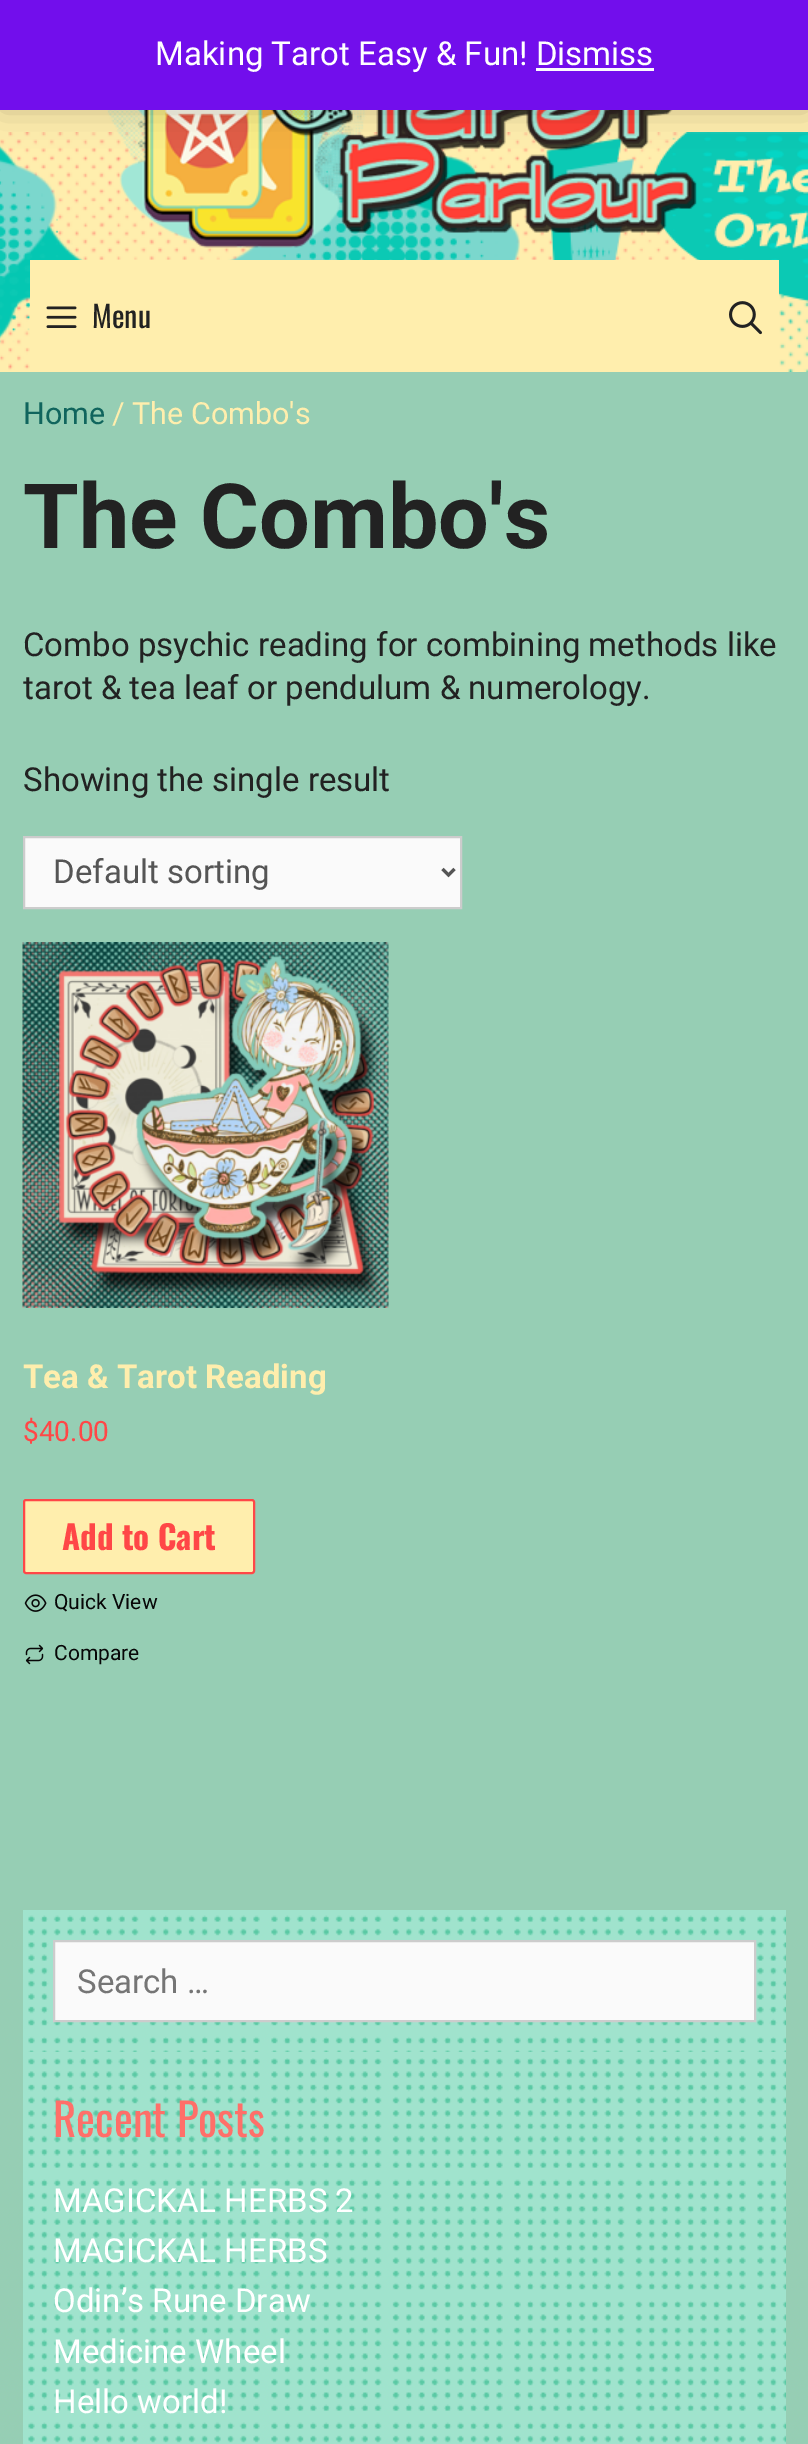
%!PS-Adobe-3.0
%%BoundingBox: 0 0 808 2444
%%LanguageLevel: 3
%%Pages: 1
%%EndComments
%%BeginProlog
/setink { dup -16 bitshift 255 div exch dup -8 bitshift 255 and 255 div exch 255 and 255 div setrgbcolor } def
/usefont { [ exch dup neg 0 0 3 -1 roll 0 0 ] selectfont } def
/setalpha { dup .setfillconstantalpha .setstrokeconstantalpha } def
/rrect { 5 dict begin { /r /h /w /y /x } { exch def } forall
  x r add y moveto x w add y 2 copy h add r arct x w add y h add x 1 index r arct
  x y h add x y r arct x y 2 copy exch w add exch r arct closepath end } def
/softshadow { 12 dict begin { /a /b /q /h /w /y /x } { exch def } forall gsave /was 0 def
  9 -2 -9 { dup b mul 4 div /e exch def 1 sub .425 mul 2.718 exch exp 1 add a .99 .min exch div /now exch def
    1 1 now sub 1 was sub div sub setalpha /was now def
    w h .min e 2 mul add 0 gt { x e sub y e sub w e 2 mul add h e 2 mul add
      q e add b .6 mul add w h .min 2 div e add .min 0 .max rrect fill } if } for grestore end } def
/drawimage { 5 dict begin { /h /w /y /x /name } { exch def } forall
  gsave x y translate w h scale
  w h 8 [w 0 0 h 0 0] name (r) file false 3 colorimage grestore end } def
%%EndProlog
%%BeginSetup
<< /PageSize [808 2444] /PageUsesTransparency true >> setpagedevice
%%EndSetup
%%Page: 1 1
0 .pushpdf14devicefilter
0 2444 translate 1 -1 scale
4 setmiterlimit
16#96CEB4 setink
0 0 808 2444 rectfill
16#FFEEAD setink
0 110 808 22 rectfill
(img1.raw) 0 132 808 240 drawimage
(img2.raw) 107 110 590 138 drawimage
16#000000 setink
0 2 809 109 0 16.5 0.2 softshadow
16#720EEC setink
0 0 808 110 rectfill
/Roboto-Regular 33 usefont
16#FFFFFF setink
155 65 moveto (Making Tarot Easy & Fun! Dismiss) show
16#FCFBFE setink
536 68 118 3 rectfill
16#FFEEAD setink
30 260 749 112 rectfill
(img3.raw) 46 306 31 22 drawimage
/Oswald-Regular 30 usefont
16#222222 setink
92 328 moveto (Menu) show
(img4.raw) 729 301 33 34 drawimage
/Roboto-Regular 30.5 usefont
16#10655D setink
23 424 moveto (Home) show
16#FFEEAD setink
112 424 moveto (/ The Combo's) show
/Roboto-Bold 90 usefont
16#222222 setink
23 548 moveto (The Combo's) show
/Roboto-Regular 33 usefont
[
    [(Combo psychic reading for combining methods like) 23 656]
    [(tarot & tea leaf or pendulum & numerology.) 23 699]
    [(Showing the single result) 23 791]
] { aload pop moveto show } forall
16#FAFAFA setink
24 837 moveto 461 837 lineto 461 908 lineto 24 908 lineto closepath gsave fill grestore
16#CCCCCC setink
2 setlinewidth
stroke
16#555555 setink
3 setlinewidth
442.5 869 moveto 448.5 875 lineto 454.5 869 lineto stroke
53 883 moveto (Default sorting) show
(img5.raw) 22 942 367 366 drawimage
/Roboto-Bold 33 usefont
16#FFEEAD setink
23 1388 moveto (Tea & Tarot Reading) show
/Roboto-Regular 28 usefont
16#FF4747 setink
23 1441 moveto ($40.00) show
16#FFEEAD setink
24 1500 230 73 2 rrect gsave fill grestore
16#FF4747 setink
2 setlinewidth
stroke
/Oswald-Bold 33 usefont
62 1550 moveto (Add to Cart) show
(img6.raw) 24 1594 23 18 drawimage
/Roboto-Regular 21 usefont
16#070707 setink
54 1609 moveto (Quick View) show
(img7.raw) 25 1644 19 21 drawimage
54 1660 moveto (Compare) show
16#A0E3CD setink
23 1910 763 534 rectfill
(img8.raw) 28 1915 758 137 drawimage
16#FAFAFA setink
54 1941 moveto 755 1941 lineto 755 2021 lineto 54 2021 lineto closepath gsave fill grestore
16#CCCCCC setink
stroke
/Roboto-Regular 33 usefont
16#757575 setink
77 1993 moveto (Search …) show
(img9.raw) 28 2058 758 385 drawimage
/Oswald-Regular 45 usefont
16#FF6F69 setink
53 2137 moveto (Recent Posts) show
/Roboto-Regular 33 usefont
16#FFFFFF setink
[
    [(MAGICKAL HERBS 2) 53 2212]
    [(MAGICKAL HERBS) 53 2262]
    [(Odin’s Rune Draw) 53 2312]
    [(Medicine Wheel) 53 2363]
    [(Hello world!) 53 2413]
] { aload pop moveto show } forall
.poppdf14devicefilter showpage
%%EOF
